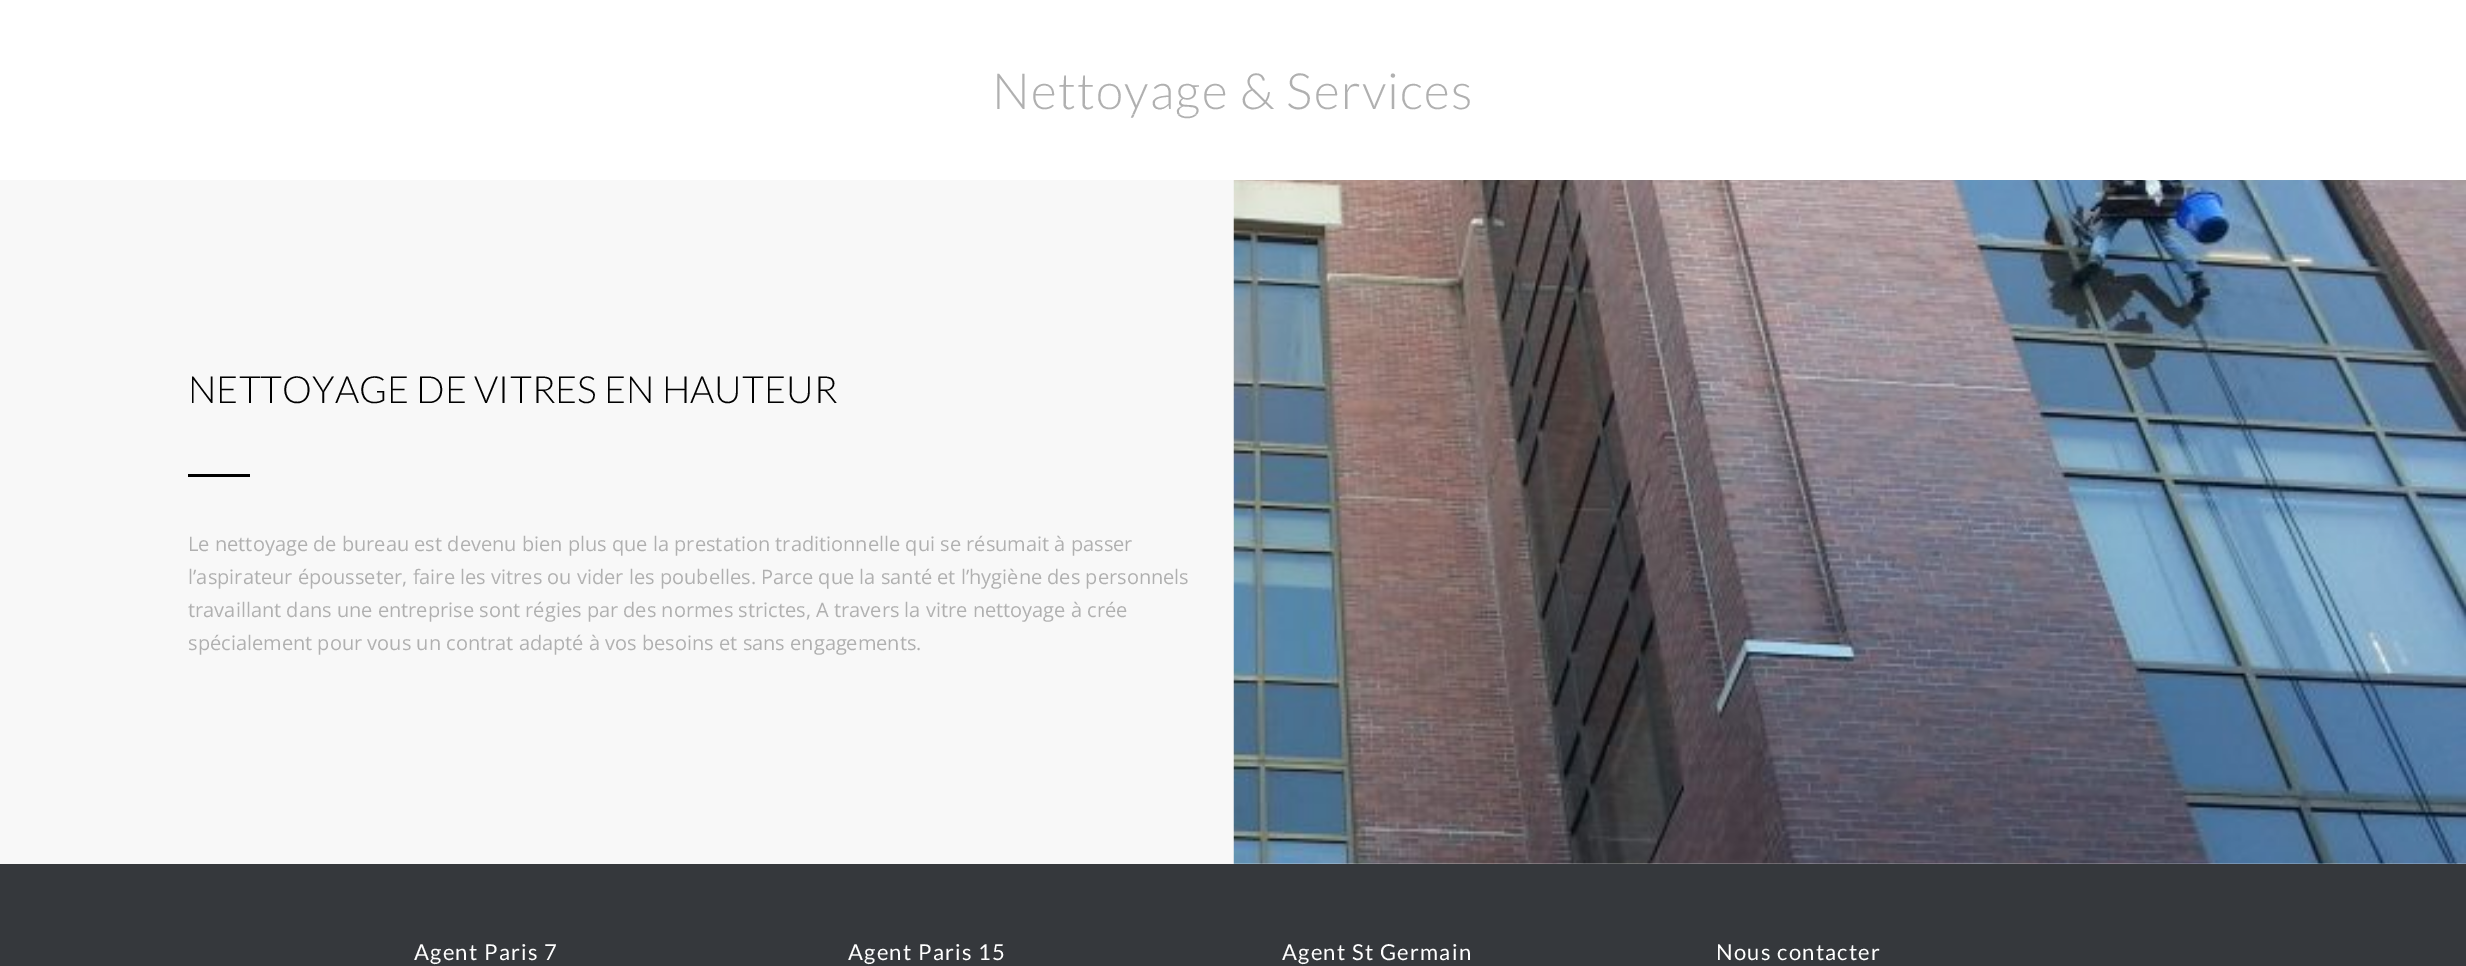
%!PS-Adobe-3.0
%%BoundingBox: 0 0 2466 966
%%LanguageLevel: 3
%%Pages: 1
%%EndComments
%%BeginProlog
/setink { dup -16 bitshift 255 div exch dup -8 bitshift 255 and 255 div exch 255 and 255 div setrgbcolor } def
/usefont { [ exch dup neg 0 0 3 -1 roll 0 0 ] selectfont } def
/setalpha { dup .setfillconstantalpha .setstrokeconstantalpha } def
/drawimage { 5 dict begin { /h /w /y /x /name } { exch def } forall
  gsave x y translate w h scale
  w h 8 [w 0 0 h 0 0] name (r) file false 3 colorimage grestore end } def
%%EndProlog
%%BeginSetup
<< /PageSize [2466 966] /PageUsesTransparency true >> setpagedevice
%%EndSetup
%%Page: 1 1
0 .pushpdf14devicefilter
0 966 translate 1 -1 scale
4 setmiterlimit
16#FFFFFF setink
0 0 2466 966 rectfill
/Lato-Light 50 usefont
16#B0B0B0 setink
992 109 moveto 1.25 0 (Nettoyage & Services) ashow
16#F8F8F8 setink
0 180 1234 684 rectfill
/Lato-Light 37.5 usefont
16#000000 setink
188 403 moveto (NETTOYAGE DE VITRES EN HAUTEUR) show
188 474 62 3 rectfill
/OpenSans-Regular 20 usefont
16#B0B0B0 setink
[
    [(Le nettoyage de bureau est devenu bien plus que la prestation traditionnelle qui se résumait à passer) 188 551]
    [(l’aspirateur épousseter, faire les vitres ou vider les poubelles. Parce que la santé et l’hygiène des personnels) 188 584]
    [(travaillant dans une entreprise sont régies par des normes strictes, A travers la vitre nettoyage à crée) 188 617]
    [(spécialement pour vous un contrat adapté à vos besoins et sans engagements.) 188 650]
] { aload pop moveto show } forall
(img1.raw) 1233 180 1233 684 drawimage
16#35383C setink
0 864 2466 102 rectfill
/Lato-Regular 22 usefont
16#FFFFFF setink
414 960 moveto 1.25 0 (Agent Paris 7) ashow
848 960 moveto 1.25 0 (Agent Paris 15) ashow
1282 960 moveto 1.25 0 (Agent St Germain) ashow
1716 960 moveto 1.25 0 (Nous contacter) ashow
0.25 setalpha
1132 114 66 1 rectfill
.poppdf14devicefilter showpage
%%EOF
